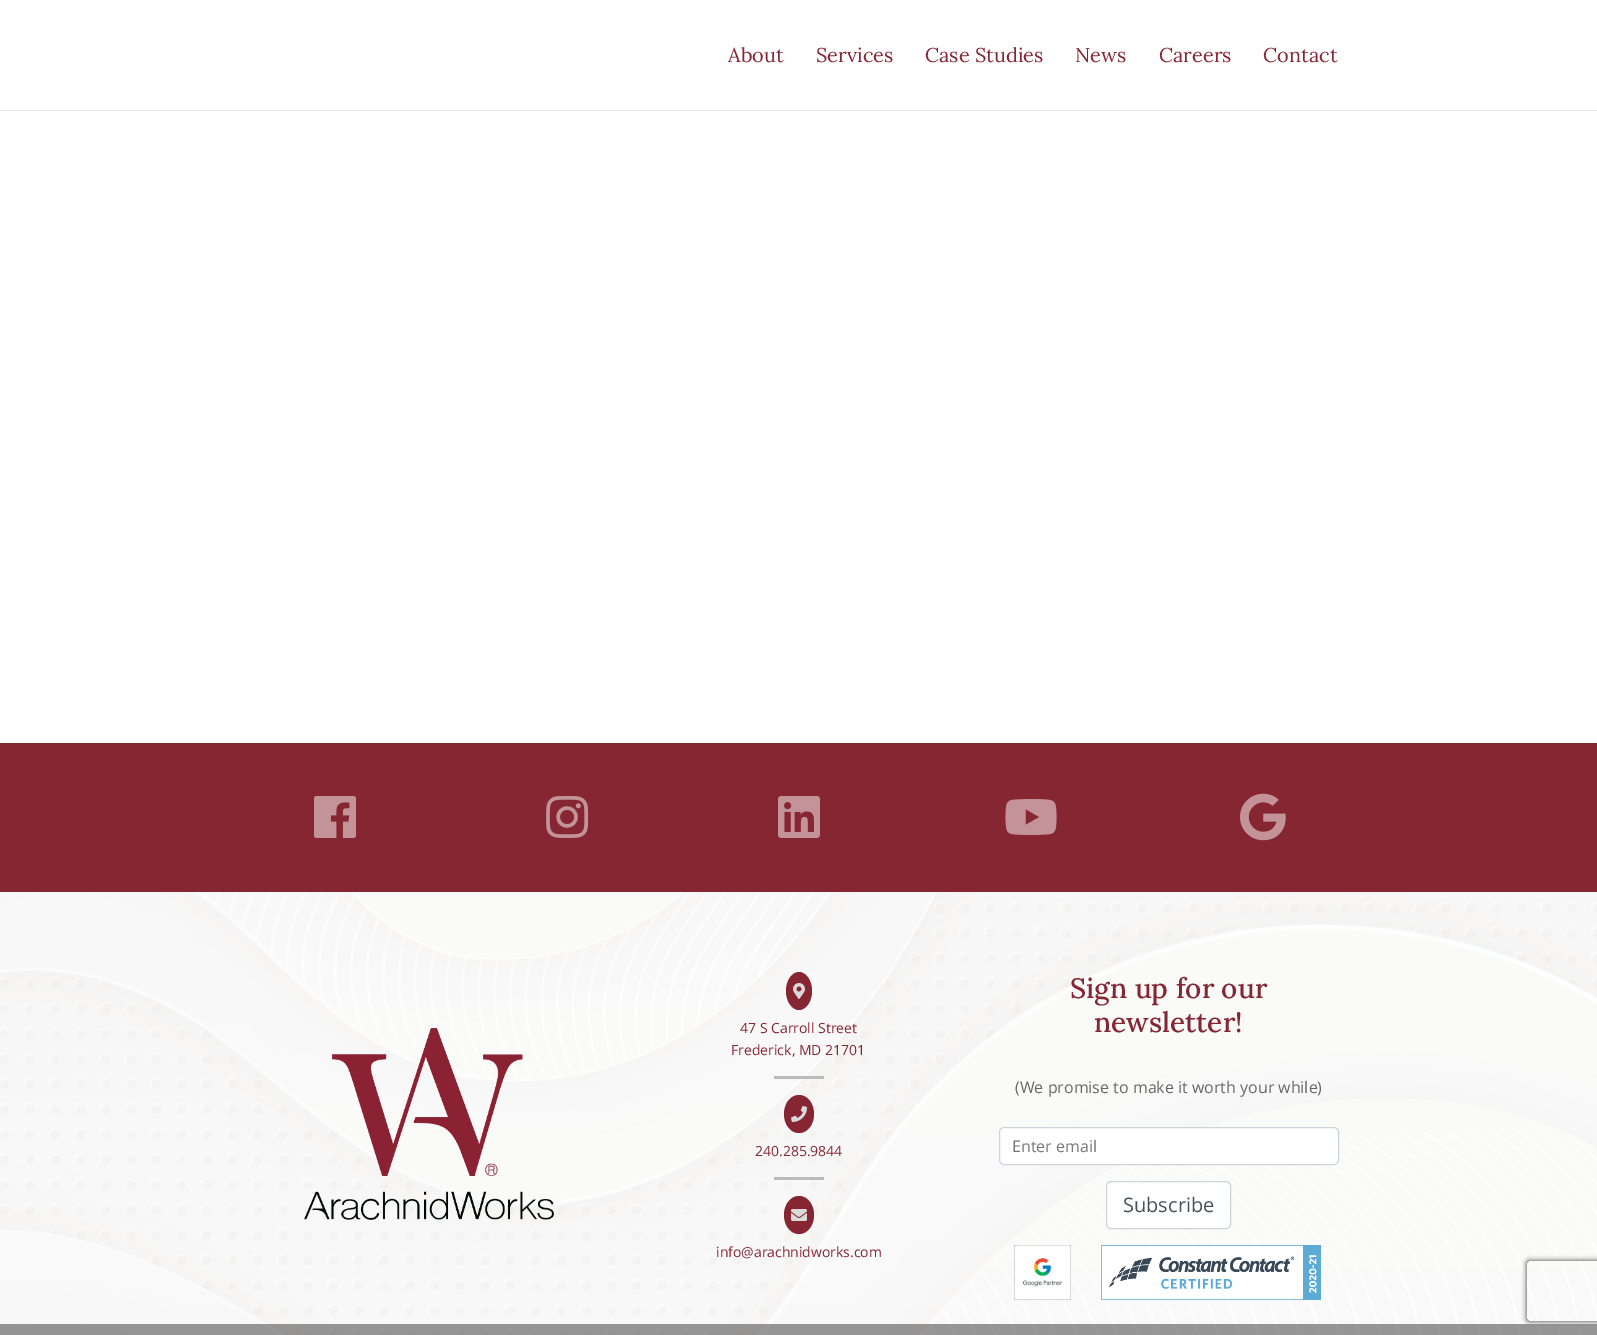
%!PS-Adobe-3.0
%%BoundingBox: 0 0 1597 1335
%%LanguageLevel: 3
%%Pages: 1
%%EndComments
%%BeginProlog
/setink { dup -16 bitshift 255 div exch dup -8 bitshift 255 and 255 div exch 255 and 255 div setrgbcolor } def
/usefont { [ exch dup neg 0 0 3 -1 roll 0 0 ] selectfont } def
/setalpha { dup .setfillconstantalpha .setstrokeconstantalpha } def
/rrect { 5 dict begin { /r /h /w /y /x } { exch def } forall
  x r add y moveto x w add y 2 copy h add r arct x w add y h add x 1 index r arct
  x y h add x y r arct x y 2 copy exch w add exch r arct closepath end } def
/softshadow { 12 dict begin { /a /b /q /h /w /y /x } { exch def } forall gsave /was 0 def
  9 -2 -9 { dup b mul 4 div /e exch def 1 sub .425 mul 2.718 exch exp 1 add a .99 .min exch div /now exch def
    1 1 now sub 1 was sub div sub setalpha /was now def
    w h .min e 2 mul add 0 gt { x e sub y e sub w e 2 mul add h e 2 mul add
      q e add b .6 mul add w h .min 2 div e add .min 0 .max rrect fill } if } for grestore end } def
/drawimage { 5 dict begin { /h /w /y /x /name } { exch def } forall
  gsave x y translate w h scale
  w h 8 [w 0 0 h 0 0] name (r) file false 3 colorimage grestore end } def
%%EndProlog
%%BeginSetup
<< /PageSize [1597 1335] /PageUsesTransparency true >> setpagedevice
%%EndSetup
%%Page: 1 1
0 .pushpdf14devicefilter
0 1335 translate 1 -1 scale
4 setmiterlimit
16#FFFFFF setink
0 0 1597 1335 rectfill
16#E9E9EA setink
0 110 1597 1 rectfill
/Lora-Regular 20 usefont
16#862633 setink
[
    [(About) 728 62]
    [(Services) 816 62]
    [(Case Studies) 925 62]
    [(News) 1075 62]
    [(Careers) 1159 62]
    [(Contact) 1263 62]
] { aload pop moveto show } forall
(img1.raw) 0 892 1597 443 drawimage
0 743 1597 149 rectfill
(img2.raw) 314 796 42 42 drawimage
(img3.raw) 546 796 43 42 drawimage
(img4.raw) 778 796 42 42 drawimage
(img5.raw) 1005 799 52 36 drawimage
(img6.raw) 1240 793 46 48 drawimage
(img7.raw) 304 1028 250 192 drawimage
799 972 moveto 806 972 812 980.5 812 991 curveto 812 1001.5 806 1010 799 1010 curveto 792 1010 786 1001.5 786 991 curveto 786 980.5 792 972 799 972 curveto closepath fill
(img8.raw) 793 983 12 16 drawimage
/OpenSans-Regular 14 usefont
740 1033 moveto (47 S Carroll Street) show
731 1055 moveto (Frederick, MD 21701) show
16#BBBBBB setink
774 1076 50 3 rectfill
16#862633 setink
799 1095 moveto 807.5 1095 814 1103.5 814 1114 curveto 814 1124.5 807.5 1133 799 1133 curveto 790.5 1133 784 1124.5 784 1114 curveto 784 1103.5 790.5 1095 799 1095 curveto closepath fill
(img9.raw) 791 1106 16 16 drawimage
755 1156 moveto (240.285.9844) show
16#BBBBBB setink
774 1177 50 3 rectfill
16#862633 setink
799 1196 moveto 807.5 1196 814 1204.5 814 1215 curveto 814 1225.5 807.5 1234 799 1234 curveto 790.5 1234 784 1225.5 784 1215 curveto 784 1204.5 790.5 1196 799 1196 curveto closepath fill
(img10.raw) 791 1209 16 12 drawimage
716 1257 moveto (info@arachnidworks.com) show
/Lora-Medium 28 usefont
1070 998 moveto (Sign up for our) show
1094 1032 moveto (newsletter!) show
/OpenSans-Regular 16 usefont
16#666666 setink
1015 1093 moveto (\(We promise to make it worth your while\)) show
16#FFFFFF setink
999.5 1127.5 339 37 4.5 rrect gsave fill grestore
16#CED4DA setink
stroke
16#757575 setink
1012 1152 moveto (Enter email) show
16#FFFFFF setink
1106.5 1181.5 124 47 4.5 rrect gsave fill grestore
16#CED4DA setink
stroke
/OpenSans-Regular 20 usefont
16#495057 setink
1123 1212 moveto (Subscribe) show
(img11.raw) 1014 1245 57 55 drawimage
(img12.raw) 1101 1245 220 55 drawimage
0.4 setalpha
16#000000 setink
0 1324 1597 11 rectfill
gsave
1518 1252 moveto 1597 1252 lineto 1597 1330 lineto 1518 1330 lineto closepath 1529 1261 moveto 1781 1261 lineto 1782 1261 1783 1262 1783 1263 curveto 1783 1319 lineto 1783 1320 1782 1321 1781 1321 curveto 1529 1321 lineto 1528 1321 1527 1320 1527 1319 curveto 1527 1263 lineto 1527 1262 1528 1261 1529 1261 curveto closepath eoclip newpath
1 setalpha
16#808080 setink
1527 1261 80 60 2 2.5 1 softshadow
1527 1261 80 60 2 2.5 1 softshadow
grestore
.poppdf14devicefilter showpage
%%EOF
